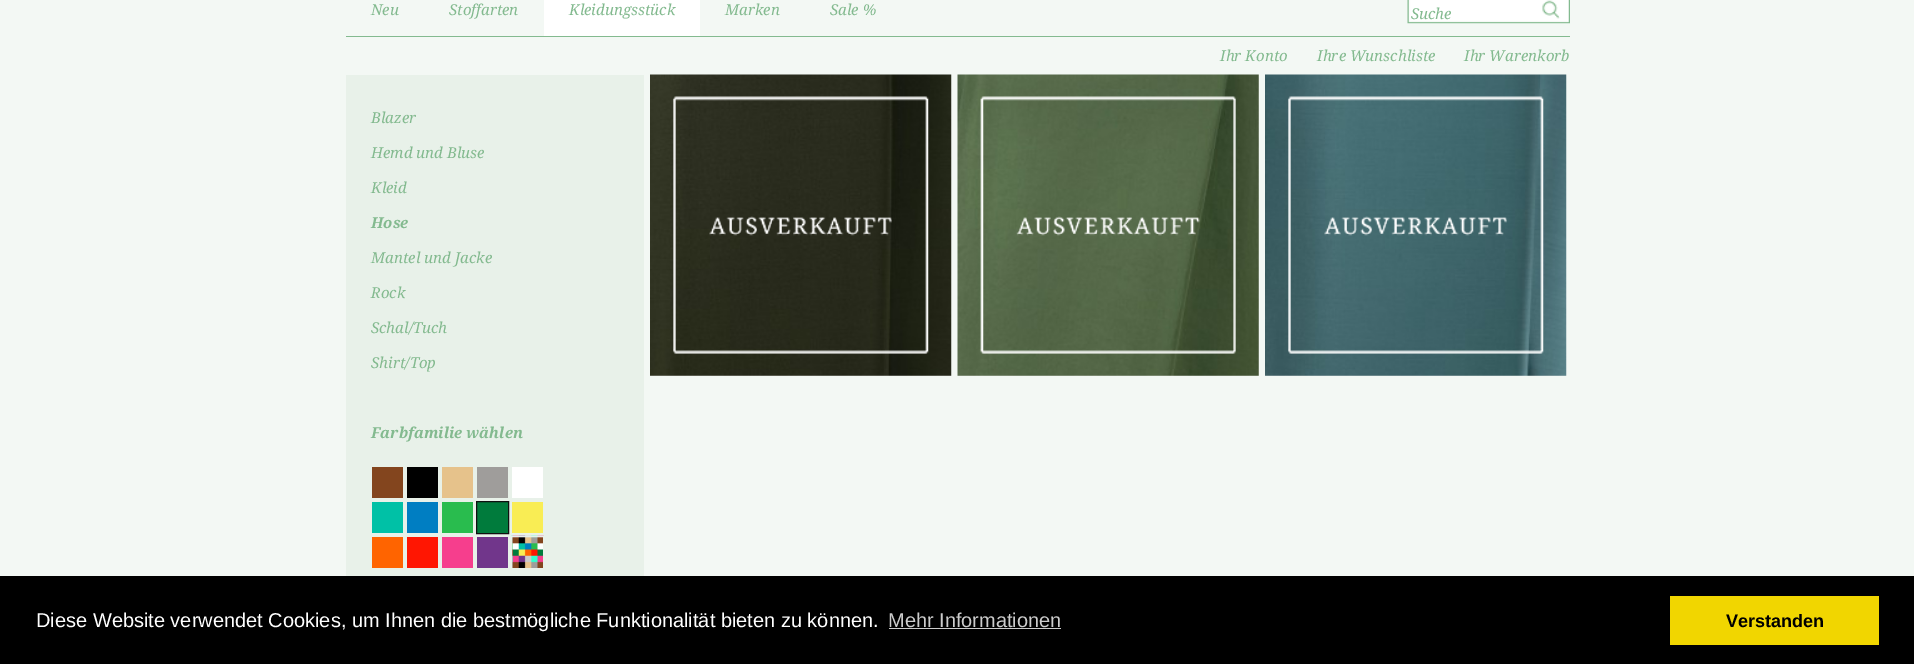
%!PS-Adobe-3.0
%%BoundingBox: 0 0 1914 664
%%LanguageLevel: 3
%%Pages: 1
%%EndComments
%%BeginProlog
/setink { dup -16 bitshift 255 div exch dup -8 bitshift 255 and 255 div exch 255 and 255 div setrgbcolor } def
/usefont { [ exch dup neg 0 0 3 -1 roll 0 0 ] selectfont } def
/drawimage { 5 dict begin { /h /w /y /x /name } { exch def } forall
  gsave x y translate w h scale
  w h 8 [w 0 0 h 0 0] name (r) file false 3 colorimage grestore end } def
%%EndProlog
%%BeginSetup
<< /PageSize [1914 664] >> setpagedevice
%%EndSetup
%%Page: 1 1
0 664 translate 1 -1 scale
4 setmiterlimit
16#F3F8F4 setink
0 0 1914 664 rectfill
16#83BA8F setink
346 36 1224 1 rectfill
/DroidSerif-Italic 15 usefont
371 15 moveto (Neu) show
449 15 moveto (Stoffarten) show
16#FFFFFF setink
544 0 156 36 rectfill
16#83BA8F setink
[
    [(Kleidungsstück) 569 15]
    [(Marken) 725 15]
    [(Sale %) 830 15]
] { aload pop moveto show } forall
(img1.raw) 1407 0 163 24 drawimage
[
    [(Suche) 1411 19]
    [(Ihr Konto) 1220 61]
    [(Ihre Wunschliste) 1317 61]
    [(Ihr Warenkorb) 1464 61]
] { aload pop moveto show } forall
16#E8F1E9 setink
346 75 298 501 rectfill
16#83BA8F setink
[
    [(Blazer) 371 123]
    [(Hemd und Bluse) 371 158]
    [(Kleid) 371 193]
] { aload pop moveto show } forall
/DroidSerif-BoldItalic 15 usefont
371 228 moveto (Hose) show
/DroidSerif-Italic 15 usefont
[
    [(Mantel und Jacke) 371 263]
    [(Rock) 371 298]
    [(Schal/Tuch) 371 333]
    [(Shirt/Top) 371 368]
] { aload pop moveto show } forall
/DroidSerif-BoldItalic 15 usefont
371 438 moveto (Farbfamilie wählen) show
[
    [372 467 31 31 16#83451E]
    [407 467 31 31 16#000000]
    [442 467 31 31 16#E6C28B]
    [477 467 31 31 16#9F9D9B]
    [512 467 31 31 16#FFFFFF]
    [372 502 31 31 16#00C1A6]
    [407 502 31 31 16#007EC2]
    [442 502 31 31 16#29BC4E]
] { aload pop setink rectfill } forall
16#007B3C setink
476.5 501.5 moveto 508.5 501.5 lineto 508.5 533.5 lineto 476.5 533.5 lineto closepath gsave fill grestore
16#101010 setink
stroke
[
    [512 502 31 31 16#F9ED54]
    [372 537 31 31 16#FF6400]
    [407 537 31 31 16#FF1602]
    [442 537 31 31 16#F63E8D]
    [477 537 31 31 16#71368B]
] { aload pop setink rectfill } forall
(img2.raw) 511 535 33 33 drawimage
16#E8F1E9 setink
511.5 536.5 32 32 rectstroke
(img3.raw) 650 74 302 302 drawimage
(img4.raw) 673 96 256 258 drawimage
16#F0F0F0 setink
958 75 301 301 rectfill
(img5.raw) 957 74 302 302 drawimage
(img6.raw) 980 96 256 258 drawimage
(img7.raw) 1265 74 302 302 drawimage
(img8.raw) 1288 96 256 258 drawimage
16#000000 setink
0 576 1914 88 rectfill
/LiberationSans-Regular 20 usefont
16#FFFFFF setink
36 627 moveto (Diese Website verwendet Cookies, um Ihnen die bestmögliche Funktionalität bieten zu können.) show
16#CCCCCC setink
888 627 moveto (Mehr Informationen) show
889 628 172 1 rectfill
16#F1D600 setink
1670 596 209 49 rectfill
/LiberationSans-Bold 18 usefont
16#000000 setink
1726 627 moveto (Verstanden) show
showpage
%%EOF
